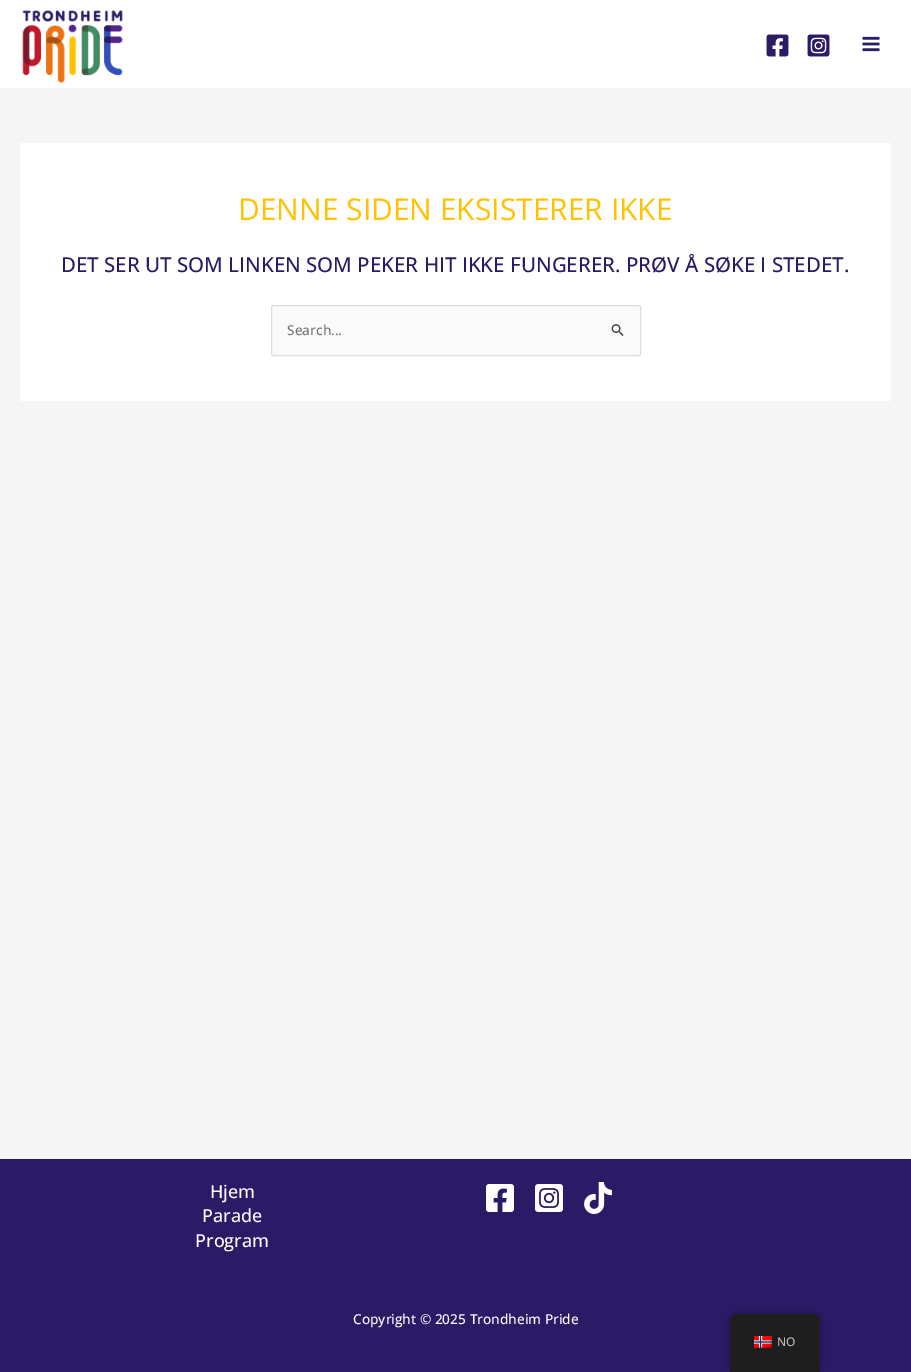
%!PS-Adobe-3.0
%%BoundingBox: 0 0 911 1372
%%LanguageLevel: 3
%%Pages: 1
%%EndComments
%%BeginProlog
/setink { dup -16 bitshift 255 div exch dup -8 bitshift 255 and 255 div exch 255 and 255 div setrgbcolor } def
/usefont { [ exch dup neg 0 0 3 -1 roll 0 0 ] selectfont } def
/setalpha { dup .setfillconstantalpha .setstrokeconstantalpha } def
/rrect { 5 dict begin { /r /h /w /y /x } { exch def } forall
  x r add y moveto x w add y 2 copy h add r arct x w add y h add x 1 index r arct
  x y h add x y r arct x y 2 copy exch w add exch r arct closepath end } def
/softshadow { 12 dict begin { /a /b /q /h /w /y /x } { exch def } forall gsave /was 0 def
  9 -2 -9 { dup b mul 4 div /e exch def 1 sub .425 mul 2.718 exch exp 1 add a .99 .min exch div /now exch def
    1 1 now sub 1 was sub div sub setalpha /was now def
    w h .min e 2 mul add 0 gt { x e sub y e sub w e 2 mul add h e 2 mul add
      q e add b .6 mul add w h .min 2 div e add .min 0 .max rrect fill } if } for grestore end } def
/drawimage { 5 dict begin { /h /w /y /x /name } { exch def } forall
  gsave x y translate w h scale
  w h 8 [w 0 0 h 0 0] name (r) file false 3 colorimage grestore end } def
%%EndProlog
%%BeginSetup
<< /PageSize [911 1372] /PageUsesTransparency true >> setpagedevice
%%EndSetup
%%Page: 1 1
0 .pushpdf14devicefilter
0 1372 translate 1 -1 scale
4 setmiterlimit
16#F5F5F5 setink
0 0 911 1372 rectfill
16#FFFFFF setink
0 0 911 88 rectfill
(img1.raw) 22 10 101 73 drawimage
(img2.raw) 766 34 23 23 drawimage
(img3.raw) 807 34 23 23 drawimage
(img4.raw) 862 36 18 16 drawimage
20 143 871 258 rectfill
/OpenSans-Regular 30 usefont
16#FFC100 setink
238 220 moveto (DENNE SIDEN EKSISTERER IKKE) show
/OpenSans-Medium 20.5 usefont
16#2B1A66 setink
61 272 moveto (DET SER UT SOM LINKEN SOM PEKER HIT IKKE FUNGERER. PRØV Å SØKE I STEDET.) show
16#FAFAFA setink
271.5 305.5 369 50 1.5 rrect gsave fill grestore
16#DDDDDD setink
stroke
/OpenSans-Medium 13.7 usefont
16#757575 setink
287 335 moveto (Search...) show
(img5.raw) 611 324 13 12 drawimage
16#2B1A66 setink
0 1159 911 213 rectfill
/OpenSans-Medium 18 usefont
16#FFFFFF setink
[
    [(Hjem) 210 1198]
    [(Parade) 202 1222]
    [(Program) 195 1247]
] { aload pop moveto show } forall
(img6.raw) 486 1184 28 28 drawimage
(img7.raw) 535 1184 28 28 drawimage
(img8.raw) 584 1182 28 32 drawimage
/OpenSans-Medium 13.7 usefont
353 1324 moveto (Copyright © 2025 Trondheim Pride) show
16#000000 setink
730 1314 90 58 8 4 0.25 softshadow
16#1E1E1E setink
738 1314 moveto 812 1314 lineto 816.5 1314 820 1317.5 820 1322 curveto 820 1372 lineto 730 1372 lineto 730 1322 lineto 730 1317.5 733.5 1314 738 1314 curveto closepath fill
(img9.raw) 754 1336 18 12 drawimage
/OpenSans-Medium 12 usefont
16#BDBDBD setink
777 1346 moveto (NO) show
.poppdf14devicefilter showpage
%%EOF
